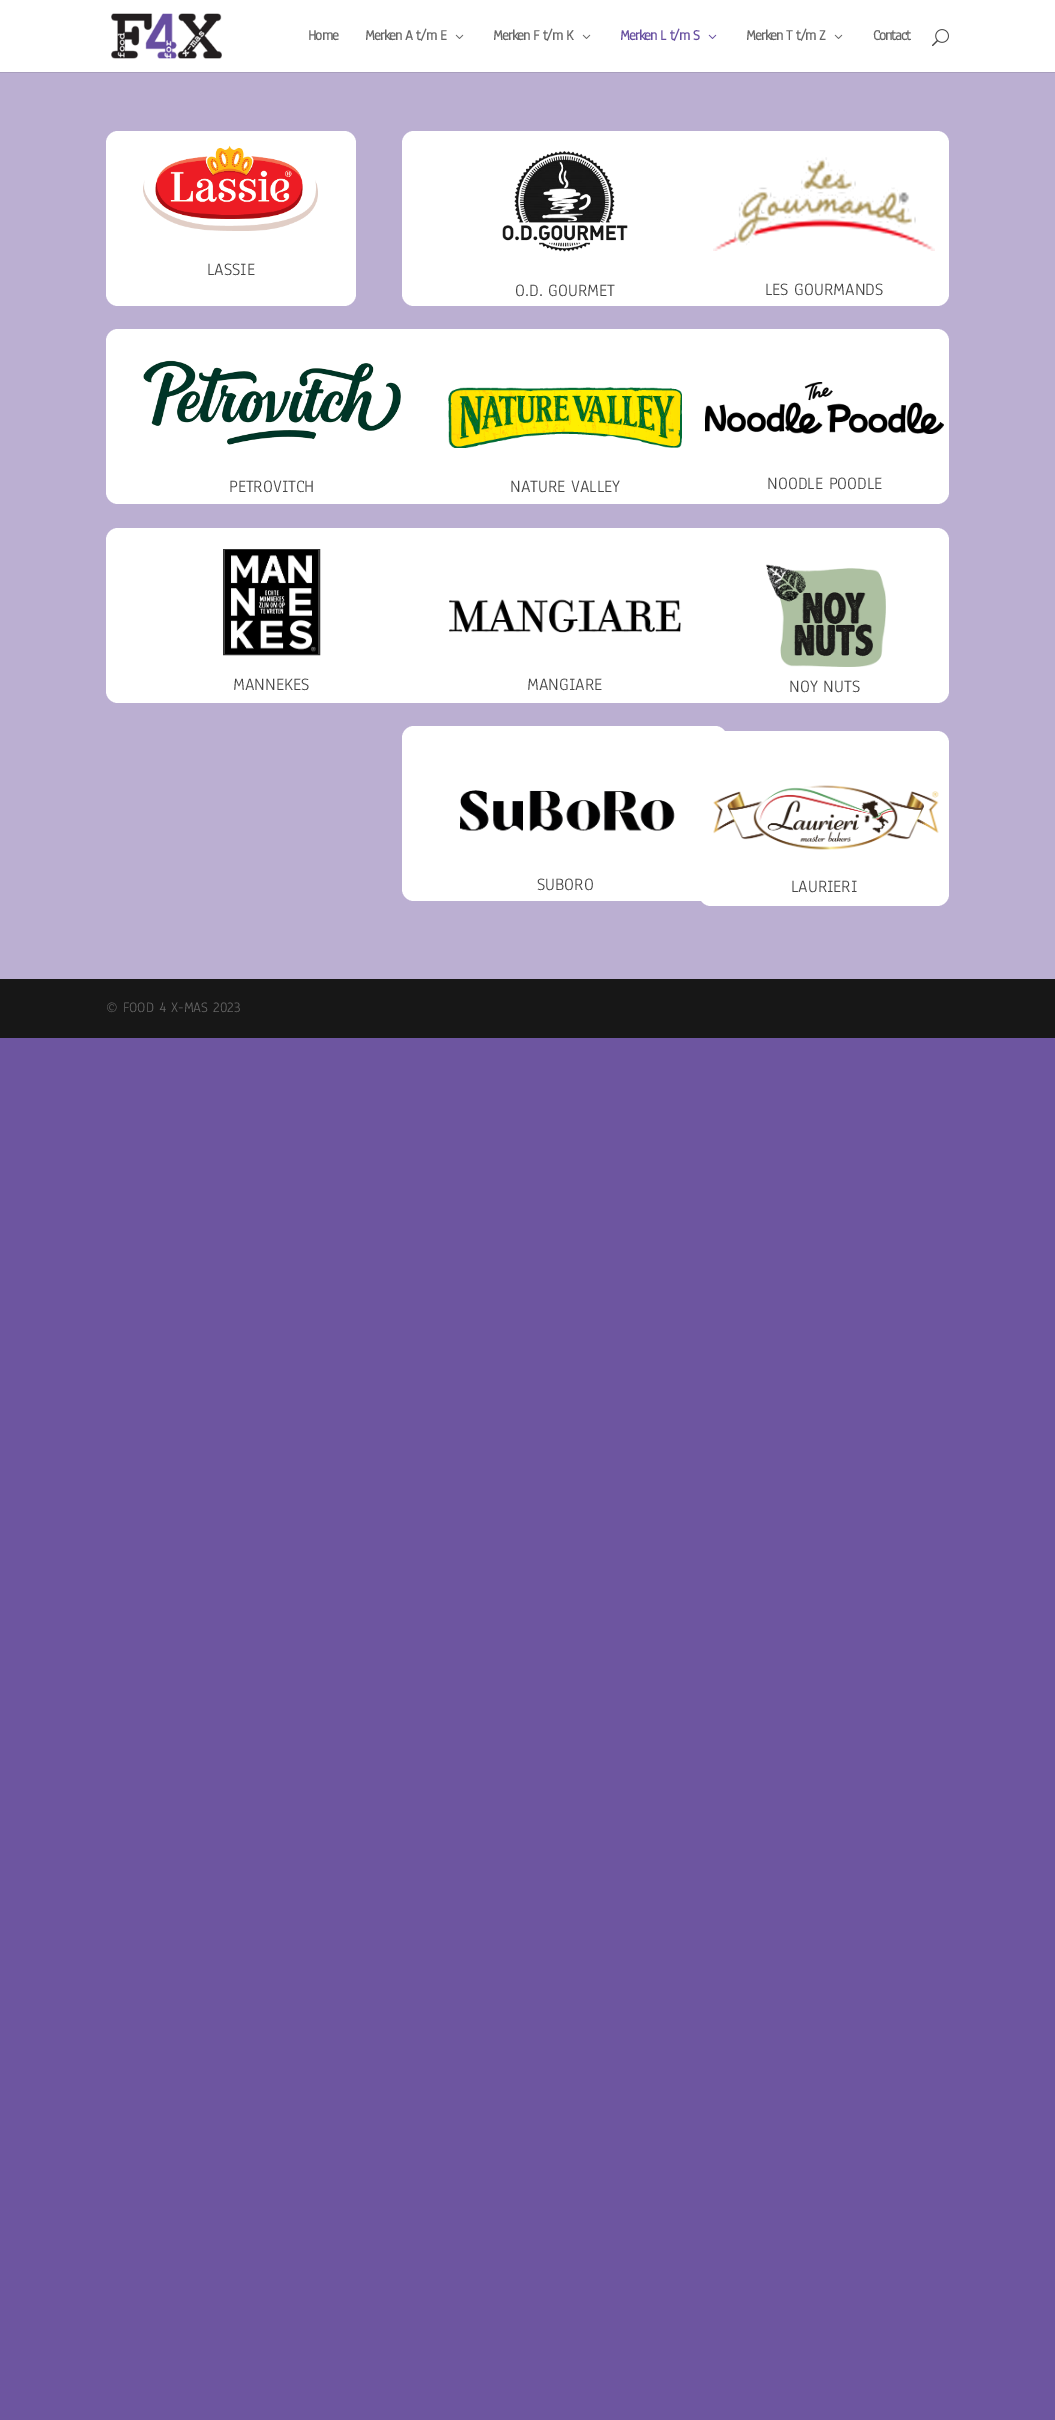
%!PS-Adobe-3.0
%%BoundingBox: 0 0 1055 2420
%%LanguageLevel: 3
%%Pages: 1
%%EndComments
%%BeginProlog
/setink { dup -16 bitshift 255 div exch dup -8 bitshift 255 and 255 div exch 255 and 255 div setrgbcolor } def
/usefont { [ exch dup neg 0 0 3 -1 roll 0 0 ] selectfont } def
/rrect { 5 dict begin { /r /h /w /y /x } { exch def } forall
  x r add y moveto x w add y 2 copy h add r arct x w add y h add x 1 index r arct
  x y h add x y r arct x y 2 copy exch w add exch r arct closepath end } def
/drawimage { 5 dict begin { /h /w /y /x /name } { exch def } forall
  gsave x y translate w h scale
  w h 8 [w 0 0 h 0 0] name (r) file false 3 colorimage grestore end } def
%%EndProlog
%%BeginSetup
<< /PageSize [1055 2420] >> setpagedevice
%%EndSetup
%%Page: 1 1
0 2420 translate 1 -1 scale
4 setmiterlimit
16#6D55A0 setink
0 0 1055 2420 rectfill
16#A89EBD setink
0 72 1055 1 rectfill
16#FFFFFF setink
0 0 1055 72 rectfill
(img1.raw) 111 13 111 46 drawimage
/Anaheim-Bold 15 usefont
16#666666 setink
308 40 moveto -1 0 (Home) ashow
365 40 moveto -1 0 (Merken A t/m E) ashow
(img2.raw) 455 34 9 5 drawimage
493 40 moveto -1 0 (Merken F t/m K) ashow
(img2.raw) 582 34 9 5 drawimage
16#674FA0 setink
620 40 moveto -1 0 (Merken L t/m S) ashow
(img3.raw) 708 34 9 5 drawimage
16#666666 setink
746 40 moveto -1 0 (Merken T t/m Z) ashow
(img2.raw) 834 34 9 5 drawimage
873 40 moveto -1 0 (Contact) ashow
(img4.raw) 932 29 17 18 drawimage
16#BBAFD2 setink
0 73 1055 906 rectfill
16#FFFFFF setink
106 131 250 175 12 rrect fill
(img5.raw) 143 145 175 86 drawimage
/Anaheim-Regular 18 usefont
16#474747 setink
207 275 moveto (LASSIE) show
16#FFFFFF setink
106 329 325 175 12 rrect fill
(img6.raw) 143 360 258 85 drawimage
16#474747 setink
229 492 moveto (PETROVITCH) show
16#FFFFFF setink
106 528 325 175 12 rrect fill
16#333333 setink
223.5 549.5 96 105 rectstroke
(img7.raw) 224 550 95 104 drawimage
16#474747 setink
233 690 moveto (MANNEKES) show
16#FFFFFF setink
402 131 325 175 12 rrect fill
(img8.raw) 502 151 126 101 drawimage
16#474747 setink
515 296 moveto (O.D. GOURMET) show
16#FFFFFF setink
402 329 325 175 12 rrect fill
(img9.raw) 448 387 234 61 drawimage
16#474747 setink
510 492 moveto (NATURE VALLEY) show
16#FFFFFF setink
402 528 325 175 12 rrect fill
(img10.raw) 449 599 232 34 drawimage
16#474747 setink
527 690 moveto (MANGIARE) show
16#FFFFFF setink
402 726 325 175 12 rrect fill
(img11.raw) 460 790 215 42 drawimage
16#474747 setink
537 890 moveto (SUBORO) show
16#FFFFFF setink
699 131 250 175 12 rrect fill
(img12.raw) 713 157 222 94 drawimage
16#474747 setink
765 295 moveto (LES GOURMANDS) show
16#FFFFFF setink
699 329 250 175 12 rrect fill
(img13.raw) 705 382 239 52 drawimage
16#474747 setink
767 489 moveto (NOODLE POODLE) show
16#FFFFFF setink
699 528 250 175 12 rrect fill
(img14.raw) 765 564 121 103 drawimage
16#474747 setink
789 692 moveto (NOY NUTS) show
16#FFFFFF setink
699 731 250 175 12 rrect fill
(img15.raw) 713 785 226 65 drawimage
16#474747 setink
791 892 moveto (LAURIERI) show
16#171717 setink
0 979 1055 59 rectfill
/Anaheim-Regular 15 usefont
16#666666 setink
106 1012 moveto (© FOOD 4 X-MAS 2023) show
showpage
%%EOF
